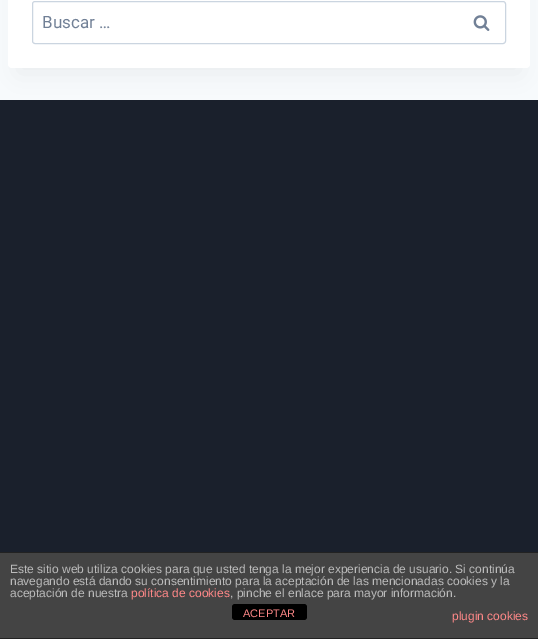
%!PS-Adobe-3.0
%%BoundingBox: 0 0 538 639
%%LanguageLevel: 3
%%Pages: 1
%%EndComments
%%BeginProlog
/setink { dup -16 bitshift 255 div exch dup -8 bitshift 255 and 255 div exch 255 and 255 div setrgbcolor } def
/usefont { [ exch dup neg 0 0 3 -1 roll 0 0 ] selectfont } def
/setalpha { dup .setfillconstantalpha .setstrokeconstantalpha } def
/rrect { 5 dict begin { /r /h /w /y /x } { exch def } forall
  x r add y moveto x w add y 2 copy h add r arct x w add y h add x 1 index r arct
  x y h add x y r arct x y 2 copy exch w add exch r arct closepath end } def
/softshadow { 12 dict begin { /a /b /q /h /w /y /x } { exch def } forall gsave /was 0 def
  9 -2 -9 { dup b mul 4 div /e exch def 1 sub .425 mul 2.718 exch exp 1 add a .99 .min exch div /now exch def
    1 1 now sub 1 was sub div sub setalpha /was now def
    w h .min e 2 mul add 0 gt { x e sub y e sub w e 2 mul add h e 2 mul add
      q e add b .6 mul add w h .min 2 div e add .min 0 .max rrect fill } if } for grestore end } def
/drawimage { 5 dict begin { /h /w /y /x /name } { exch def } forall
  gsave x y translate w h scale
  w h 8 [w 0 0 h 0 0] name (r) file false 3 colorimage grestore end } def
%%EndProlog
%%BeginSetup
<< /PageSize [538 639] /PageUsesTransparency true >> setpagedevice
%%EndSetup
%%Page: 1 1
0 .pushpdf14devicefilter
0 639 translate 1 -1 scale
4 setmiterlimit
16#F7FAFC setink
0 0 538 639 rectfill
16#1A202C setink
0 100 538 452 rectfill
16#000000 setink
18 -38 502 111 0 12.5 0.05 softshadow
16#FFFFFF setink
8 -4 522 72 4 rrect fill
16#CBD5E0 setink
32.5 1.5 473 42 2.5 rrect stroke
/Roboto-Regular 17 usefont
16#718096 setink
42 28 moveto (Buscar …) show
(img1.raw) 473 15 17 16 drawimage
[
    [0 553 538 85 16#444444]
    [0 552 538 1 16#222222]
    [0 638 538 1 16#222222]
] { aload pop setink rectfill } forall
/LiberationSans-Regular 12 usefont
16#BBBBBB setink
[
    [(Este sitio web utiliza cookies para que usted tenga la mejor experiencia de usuario. Si continúa) 10 573]
    [(navegando está dando su consentimiento para la aceptación de las mencionadas cookies y la) 10 585]
    [(aceptación de nuestra) 10 597]
] { aload pop moveto show } forall
16#FF8888 setink
131 597 moveto (política de cookies) show
16#BBBBBB setink
230 597 moveto (, pinche el enlace para mayor información.) show
16#FF8888 setink
452 620 moveto (plugin cookies) show
16#000000 setink
232 604 75 16 3 rrect fill
/LiberationSans-Regular 11 usefont
16#FF8888 setink
243 617 moveto (ACEPTAR) show
.poppdf14devicefilter showpage
%%EOF
